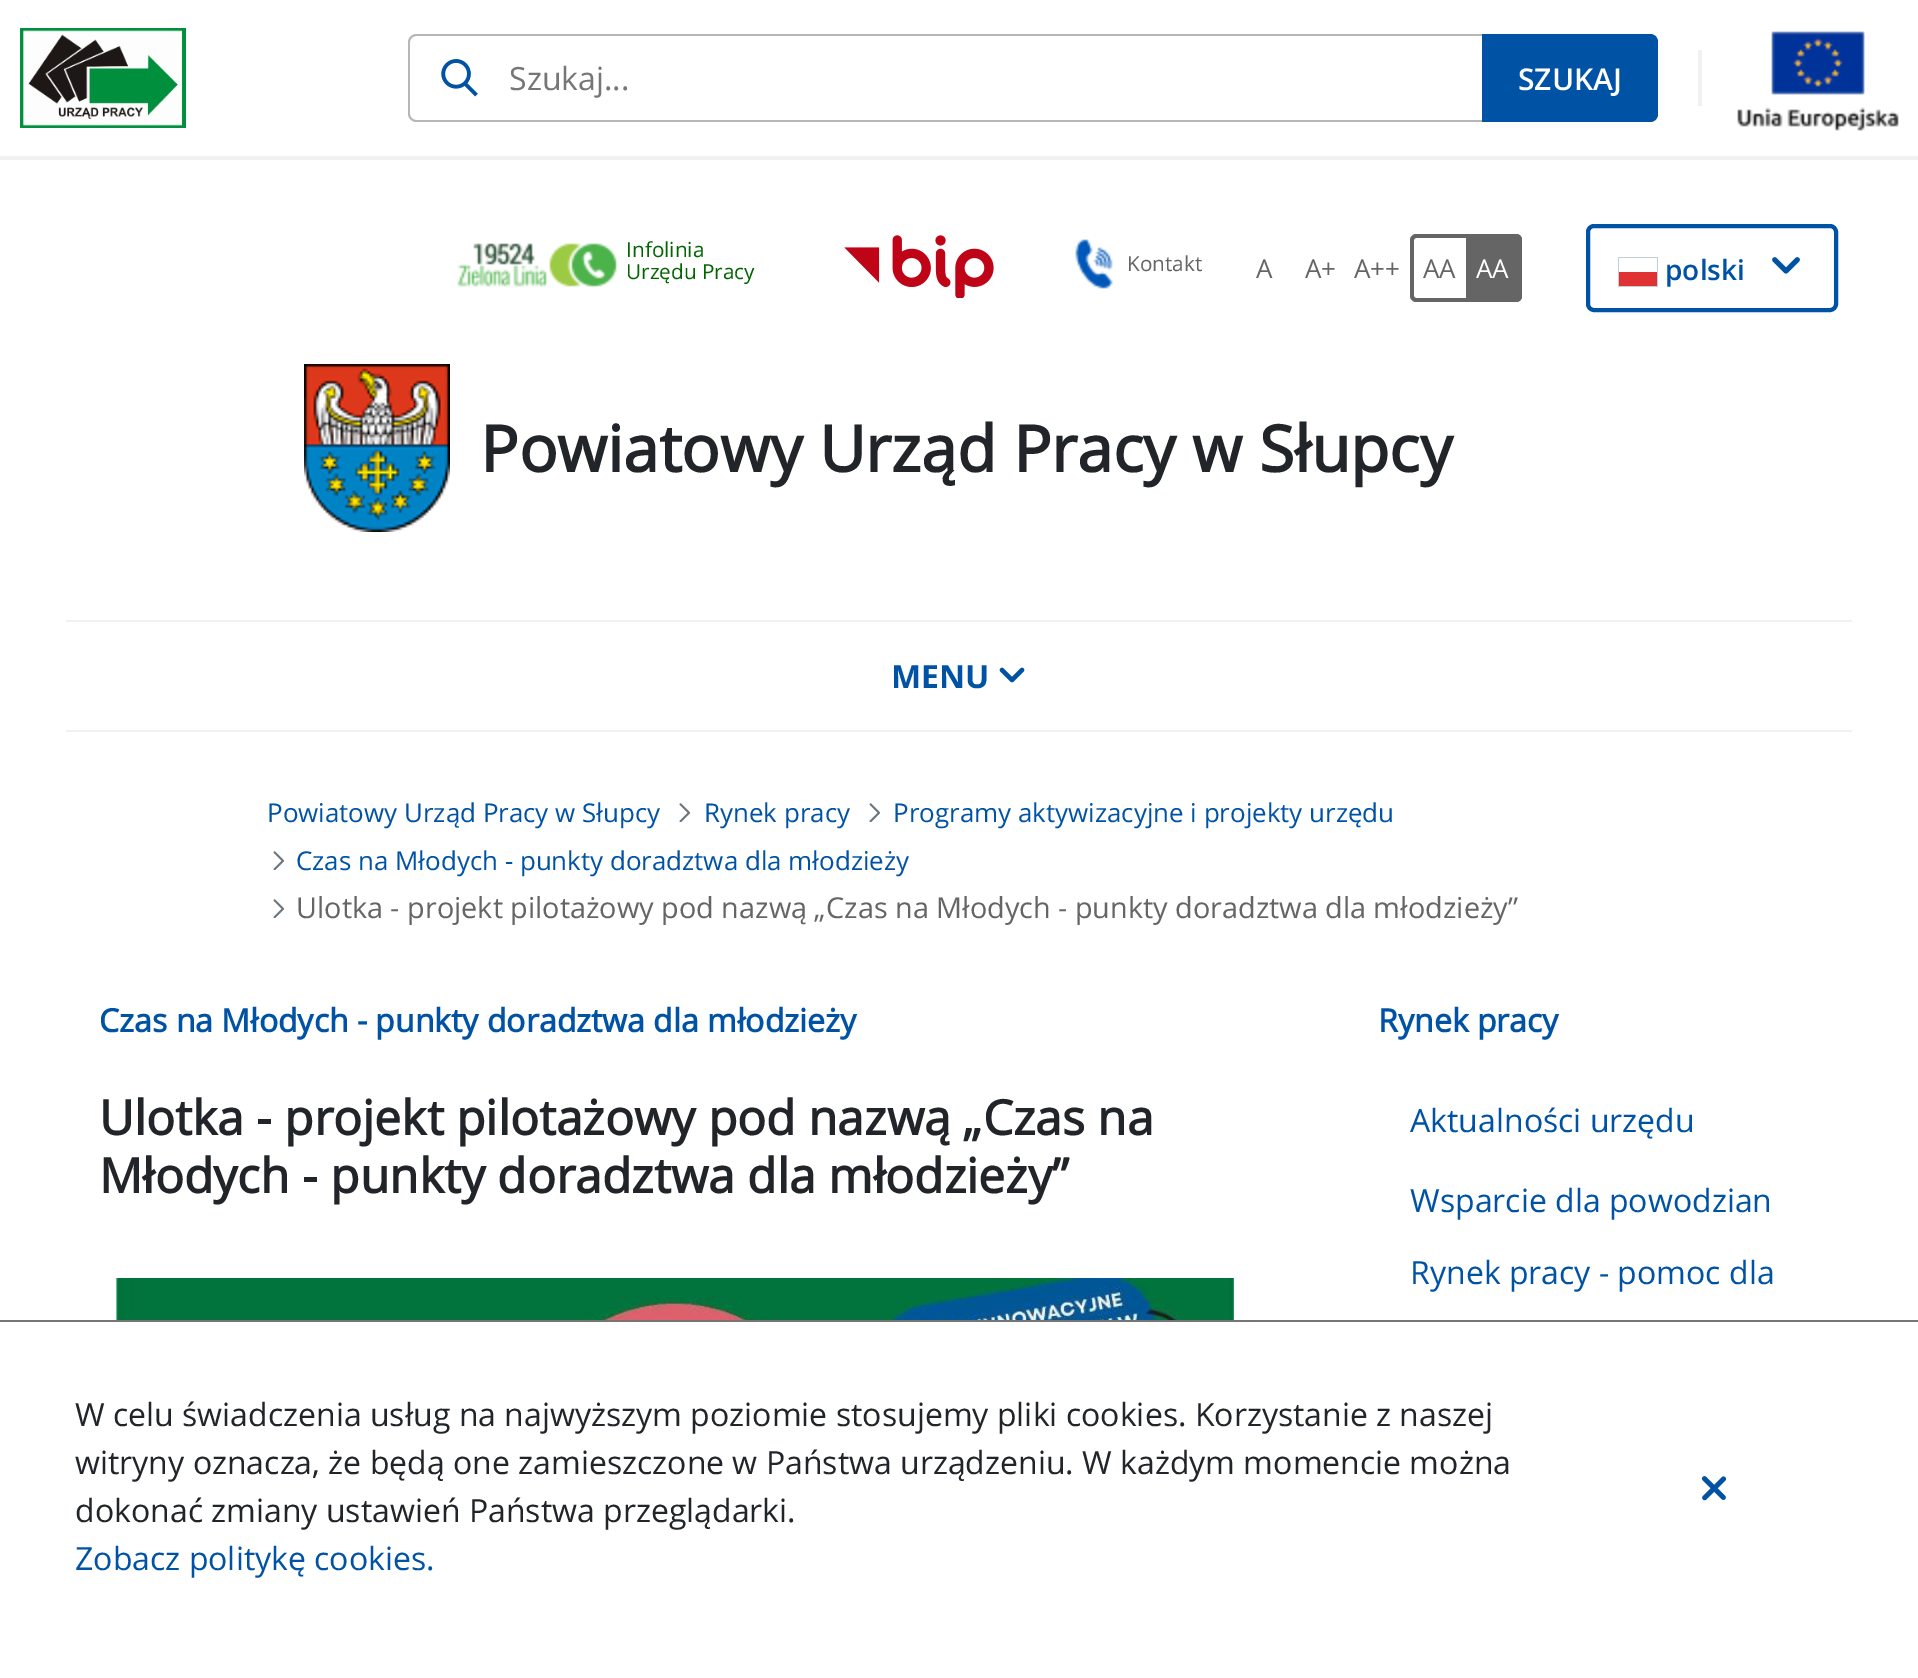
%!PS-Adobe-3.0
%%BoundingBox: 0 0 1918 1678
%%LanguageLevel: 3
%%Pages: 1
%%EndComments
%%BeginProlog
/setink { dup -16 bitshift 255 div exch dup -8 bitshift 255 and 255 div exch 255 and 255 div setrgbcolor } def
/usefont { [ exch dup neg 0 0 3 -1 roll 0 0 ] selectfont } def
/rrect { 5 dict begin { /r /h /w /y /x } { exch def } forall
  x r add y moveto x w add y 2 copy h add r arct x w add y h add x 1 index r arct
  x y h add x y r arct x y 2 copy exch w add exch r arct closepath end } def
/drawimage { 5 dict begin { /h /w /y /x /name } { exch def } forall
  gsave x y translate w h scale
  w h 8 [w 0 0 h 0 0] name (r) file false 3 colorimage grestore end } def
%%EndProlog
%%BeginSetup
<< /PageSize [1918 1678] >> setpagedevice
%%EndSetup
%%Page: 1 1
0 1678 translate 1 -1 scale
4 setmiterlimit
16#FFFFFF setink
0 0 1918 1678 rectfill
16#F1F1F1 setink
0 156 1918 4 rectfill
(img1.raw) 20 28 166 100 drawimage
(img2.raw) 441 59 37 38 drawimage
16#B7B7B7 setink
416 34 moveto 1482 34 lineto 1482 122 lineto 416 122 lineto 412 122 408 118 408 114 curveto 408 42 lineto 408 38 412 34 416 34 curveto closepath 416 36 moveto 1482 36 lineto 1482 120 lineto 416 120 lineto 413 120 410 117 410 114 curveto 410 42 lineto 410 39 413 36 416 36 curveto closepath eofill
/OpenSans-Regular 32 usefont
16#767676 setink
509 90 moveto (Szukaj...) show
16#0052A5 setink
1482 34 moveto 1650 34 lineto 1654.5 34 1658 37.5 1658 42 curveto 1658 114 lineto 1658 118.5 1654.5 122 1650 122 curveto 1482 122 lineto closepath fill
/OpenSans-SemiBold 30 usefont
16#FFFFFF setink
1518 90 moveto (SZUKAJ) show
16#F1F1F1 setink
1698 50 4 56 rectfill
(img3.raw) 1737 31 162 100 drawimage
(img4.raw) 457 243 160 44 drawimage
/OpenSans-Regular 20.75 usefont
16#016501 setink
626 257 moveto (Infolinia) show
626 279 moveto (Urzędu Pracy) show
(img5.raw) 844 235 150 63 drawimage
(img6.raw) 1075 239 38 50 drawimage
16#656565 setink
1127 271 moveto (Kontakt) show
/OpenSans-Regular 26 usefont
[
    [(A) 1256 278]
    [(A+) 1305 278]
    [(A++) 1354 278]
] { aload pop moveto show } forall
1416 234 moveto 1466 234 lineto 1466 302 lineto 1416 302 lineto 1413 302 1410 299 1410 296 curveto 1410 240 lineto 1410 237 1413 234 1416 234 curveto closepath 1416 238 moveto 1466 238 lineto 1466 298 lineto 1416 298 lineto 1415 298 1414 297 1414 296 curveto 1414 240 lineto 1414 239 1415 238 1416 238 curveto closepath eofill
1423 278 moveto (AA) show
1466 234 moveto 1516 234 lineto 1519.5 234 1522 236.5 1522 240 curveto 1522 296 lineto 1522 299.5 1519.5 302 1516 302 curveto 1466 302 lineto closepath fill
1466 234 moveto 1516 234 lineto 1519 234 1522 237 1522 240 curveto 1522 296 lineto 1522 299 1519 302 1516 302 curveto 1466 302 lineto closepath 1466 238 moveto 1516 238 lineto 1517 238 1518 239 1518 240 curveto 1518 296 lineto 1518 297 1517 298 1516 298 curveto 1466 298 lineto closepath eofill
16#FFFFFF setink
1476 278 moveto (AA) show
16#0052A5 setink
4 setlinewidth
1588 226 248 84 6 rrect stroke
/OpenSans-SemiBold 28 usefont
1665 280 moveto (polski) show
[
    [1618 257 40 30 16#C0CFD8]
    [1619 258 38 14 16#FFFFFF]
    [1619 272 38 14 16#E03232]
] { aload pop setink rectfill } forall
(img7.raw) 1772 257 28 17 drawimage
(img8.raw) 304 364 146 168 drawimage
/OpenSans-Bold 64 usefont
16#212529 setink
480 472 moveto (Powiatowy Urząd Pracy w Słupcy) show
16#F1F1F1 setink
66 620 1786 2 rectfill
66 730 1786 2 rectfill
/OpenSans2-Bold 32 usefont
16#0052A5 setink
891 688 moveto (MENU) show
(img9.raw) 999 667 26 16 drawimage
/OpenSans-Regular 25.9 usefont
267 822 moveto (Powiatowy Urząd Pracy w Słupcy) show
(img10.raw) 679 803 12 19 drawimage
704 822 moveto (Rynek pracy) show
(img10.raw) 869 803 12 19 drawimage
893 822 moveto (Programy aktywizacyjne i projekty urzędu) show
(img10.raw) 273 851 12 19 drawimage
296 870 moveto (Czas na Młodych - punkty doradztwa dla młodzieży) show
(img10.raw) 273 899 12 19 drawimage
/OpenSans-Regular 28.8 usefont
16#656565 setink
296 918 moveto (Ulotka - projekt pilotażowy pod nazwą „Czas na Młodych - punkty doradztwa dla młodzieży”) show
/OpenSans-Bold 32 usefont
16#0052A5 setink
99 1032 moveto (Czas na Młodych - punkty doradztwa dla młodzieży) show
/OpenSans-Bold 48 usefont
16#212529 setink
99 1135 moveto (Ulotka - projekt pilotażowy pod nazwą „Czas na) show
99 1193 moveto (Młodych - punkty doradztwa dla młodzieży”) show
(img11.raw) 116 1278 1118 42 drawimage
/OpenSans-Bold 32 usefont
16#0052A5 setink
1378 1032 moveto (Rynek pracy) show
/OpenSans-Regular 32 usefont
[
    [(Aktualności urzędu) 1410 1132]
    [(Wsparcie dla powodzian) 1410 1212]
    [(Rynek pracy - pomoc dla) 1410 1284]
] { aload pop moveto show } forall
16#767676 setink
0 1320 1918 2 rectfill
16#212529 setink
[
    [(W celu świadczenia usług na najwyższym poziomie stosujemy pliki cookies. Korzystanie z naszej) 75 1426]
    [(witryny oznacza, że będą one zamieszczone w Państwa urządzeniu. W każdym momencie można) 75 1474]
    [(dokonać zmiany ustawień Państwa przeglądarki.) 75 1522]
] { aload pop moveto show } forall
16#0052A5 setink
75 1570 moveto (Zobacz politykę cookies.) show
(img12.raw) 1701 1476 26 25 drawimage
showpage
%%EOF
